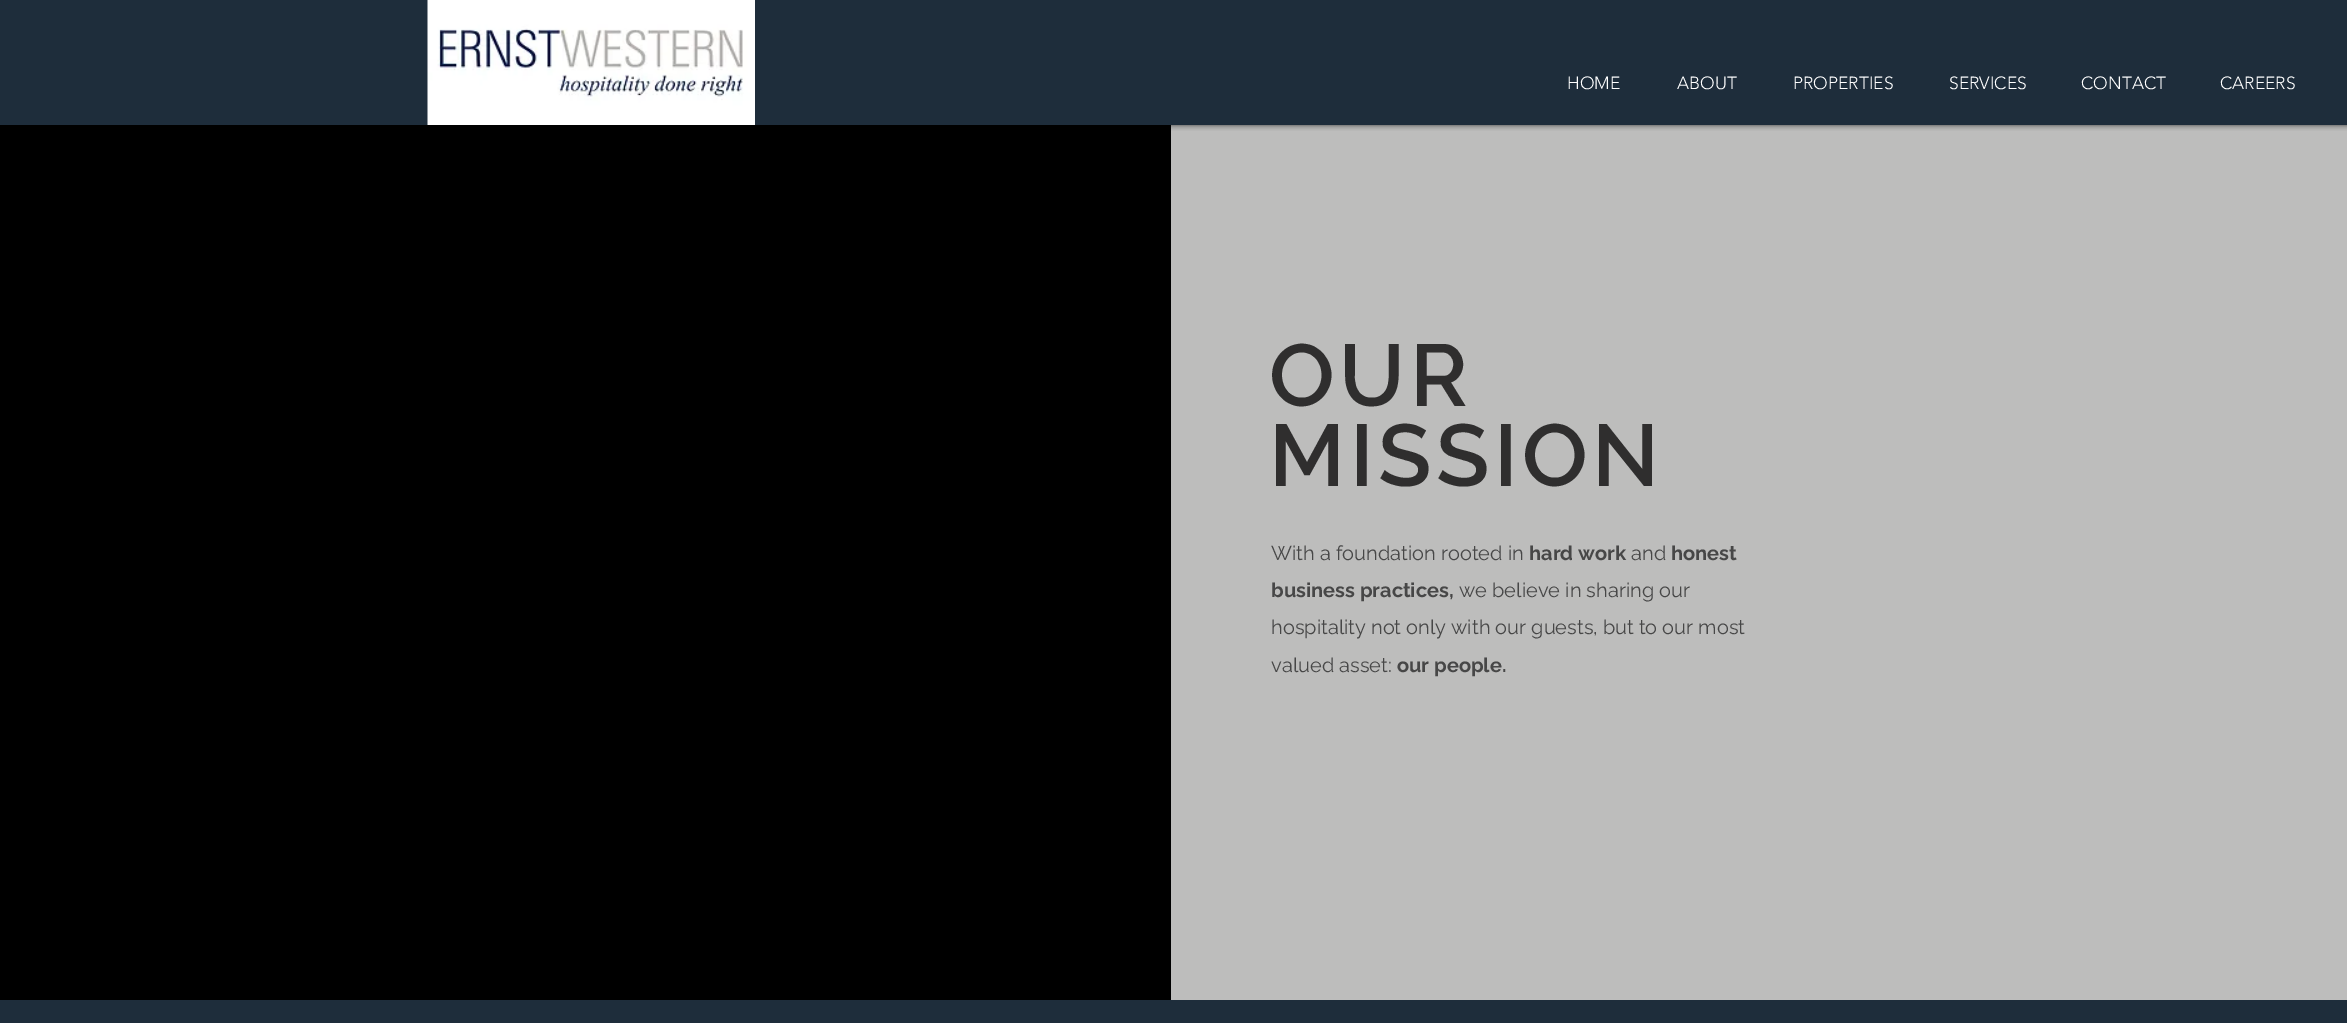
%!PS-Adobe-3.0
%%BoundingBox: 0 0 2347 1023
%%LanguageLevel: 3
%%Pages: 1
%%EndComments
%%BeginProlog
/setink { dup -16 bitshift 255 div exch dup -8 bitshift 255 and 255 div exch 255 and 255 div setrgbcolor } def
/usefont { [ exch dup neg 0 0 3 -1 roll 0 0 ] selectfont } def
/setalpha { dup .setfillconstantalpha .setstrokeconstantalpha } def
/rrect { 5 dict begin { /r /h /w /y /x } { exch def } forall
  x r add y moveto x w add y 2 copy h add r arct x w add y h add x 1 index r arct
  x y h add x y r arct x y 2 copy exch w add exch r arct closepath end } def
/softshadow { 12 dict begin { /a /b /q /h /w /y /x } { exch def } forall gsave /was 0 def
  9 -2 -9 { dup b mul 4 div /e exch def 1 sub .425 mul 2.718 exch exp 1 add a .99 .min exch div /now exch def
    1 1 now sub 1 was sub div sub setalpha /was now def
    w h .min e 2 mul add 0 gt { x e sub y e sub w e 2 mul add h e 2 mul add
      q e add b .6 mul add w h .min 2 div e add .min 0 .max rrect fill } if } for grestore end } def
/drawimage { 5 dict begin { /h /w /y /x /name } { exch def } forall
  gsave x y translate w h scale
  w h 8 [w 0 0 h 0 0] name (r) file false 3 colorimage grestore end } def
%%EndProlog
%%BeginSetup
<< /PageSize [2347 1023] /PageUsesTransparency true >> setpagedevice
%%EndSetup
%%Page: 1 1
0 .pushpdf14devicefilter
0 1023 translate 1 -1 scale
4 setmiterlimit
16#1E2D3B setink
0 0 2347 1023 rectfill
16#000000 setink
0 125 1171 875 rectfill
16#BDBDBC setink
1171 125 1176 875 rectfill
gsave
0 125 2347 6 rectclip
16#000000 setink
0 0 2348 125 0 3 0.7 softshadow
grestore
(img1.raw) 427 0 328 125 drawimage
/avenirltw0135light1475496-Light 17.5 usefont
16#FFFFFF setink
[
    [(HOME) 1567 89]
    [(ABOUT) 1677 89]
    [(PROPERTIES) 1793 89]
    [(SERVICES) 1949 89]
    [(CONTACT) 2081 89]
    [(CAREERS) 2220 89]
] { aload pop moveto show } forall
/Raleway-SemiBold 87.5 usefont
16#2F2E2E setink
1269 406 moveto 4.5 0 (OUR) ashow
1269 486 moveto 4.5 0 (MISSION) ashow
/Raleway-Regular 20 usefont
16#474747 setink
1271 560 moveto (With a foundation rooted in) show
/Raleway-Bold 20 usefont
1529 560 moveto (hard work) show
/Raleway-Regular 20 usefont
1631 560 moveto (and) show
/Raleway-Bold 20 usefont
1671 560 moveto (honest) show
1271 597 moveto (business practices,) show
/Raleway-Regular 20 usefont
[
    [(we believe in sharing our) 1459 597]
    [(hospitality not only with our guests, but to our most) 1271 634]
    [(valued asset:) 1271 672]
] { aload pop moveto show } forall
/Raleway-Bold 20 usefont
1397 672 moveto (our people.) show
.poppdf14devicefilter showpage
%%EOF
